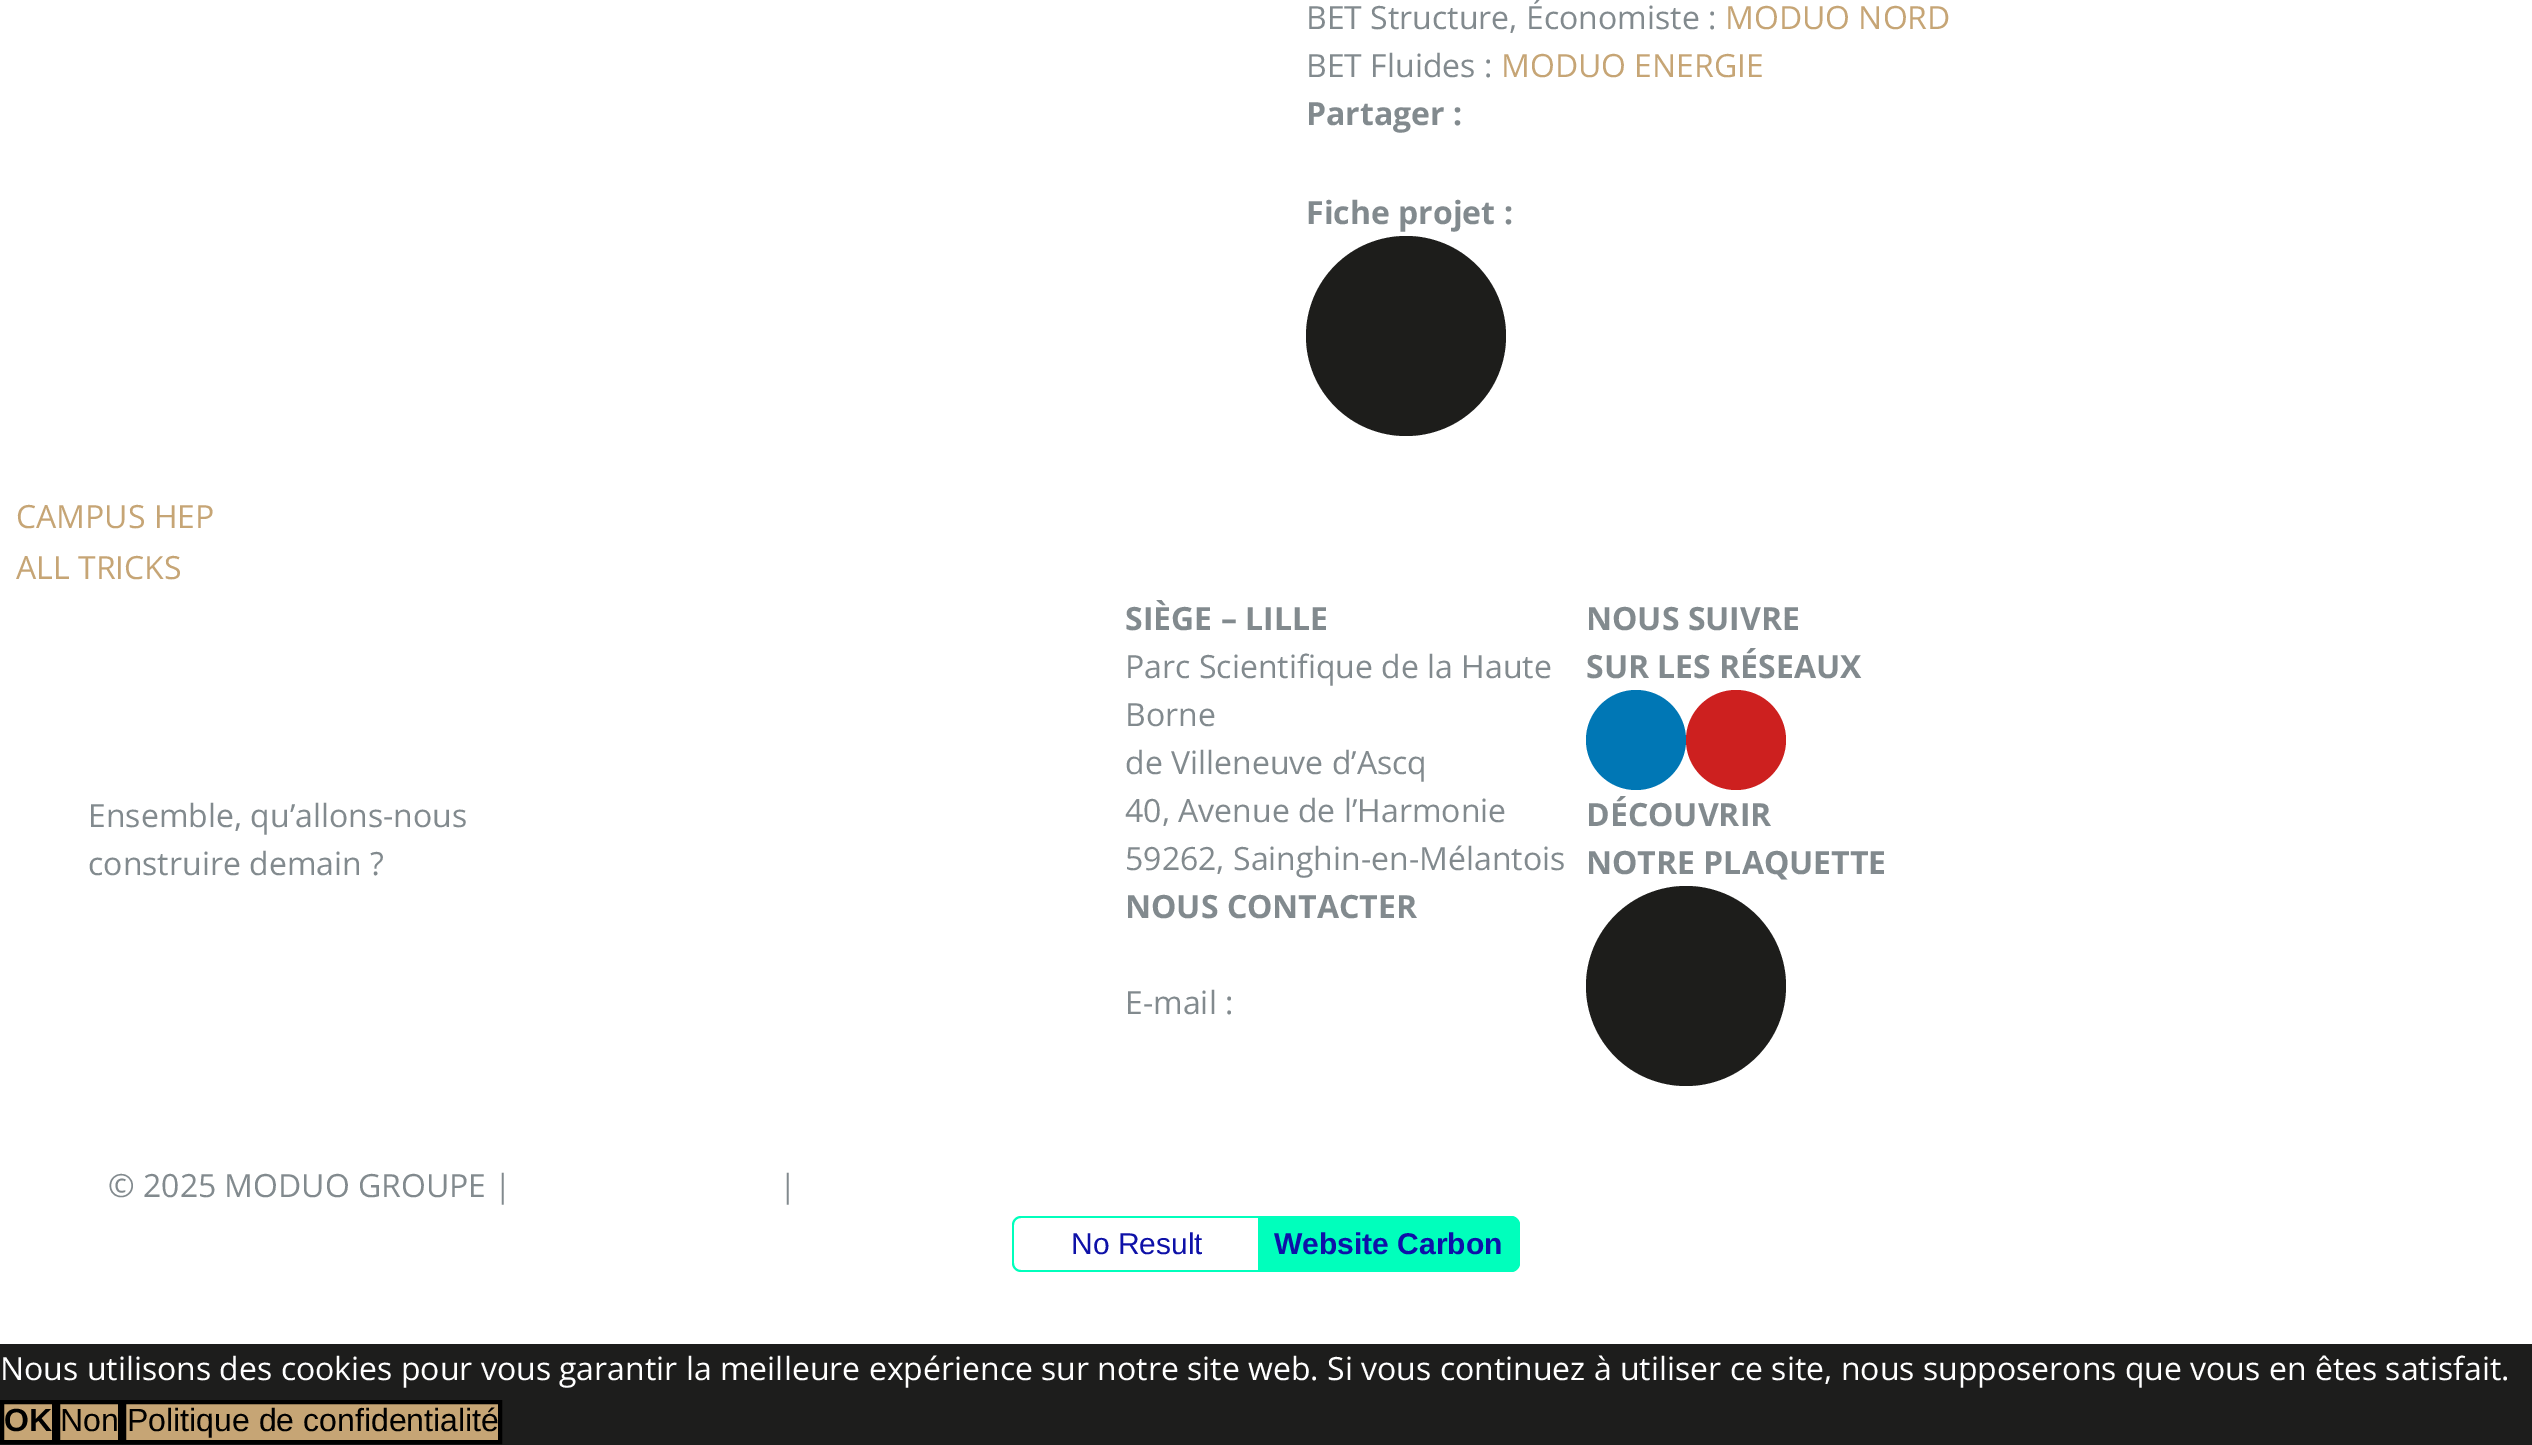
%!PS-Adobe-3.0
%%BoundingBox: 0 0 2532 1445
%%LanguageLevel: 3
%%Pages: 1
%%EndComments
%%BeginProlog
/setink { dup -16 bitshift 255 div exch dup -8 bitshift 255 and 255 div exch 255 and 255 div setrgbcolor } def
/usefont { [ exch dup neg 0 0 3 -1 roll 0 0 ] selectfont } def
/disc { newpath 0 360 arc closepath } def
%%EndProlog
%%BeginSetup
<< /PageSize [2532 1445] >> setpagedevice
%%EndSetup
%%Page: 1 1
0 1445 translate 1 -1 scale
4 setmiterlimit
16#FFFFFF setink
0 0 2532 1445 rectfill
/OpenSans-Regular 32 usefont
16#828A8E setink
1306 29 moveto (BET Structure, Économiste :) show
16#C6A575 setink
1725 29 moveto (MODUO NORD) show
16#828A8E setink
1306 77 moveto (BET Fluides :) show
16#C6A575 setink
1501 77 moveto (MODUO ENERGIE) show
/OpenSans-Bold 32 usefont
16#828A8E setink
1306 125 moveto (Partager :) show
1306 224 moveto (Fiche projet :) show
16#1D1D1B setink
1406 336 100 disc fill
/OpenSans-Regular 32 usefont
16#C6A575 setink
16 528 moveto (CAMPUS HEP) show
16 579 moveto (ALL TRICKS) show
16#828A8E setink
88 827 moveto (Ensemble, qu’allons-nous) show
88 875 moveto (construire demain ?) show
/OpenSans-Bold 32 usefont
1125 630 moveto (SIÈGE – LILLE) show
/OpenSans-Regular 32 usefont
[
    [(Parc Scientifique de la Haute) 1125 678]
    [(Borne) 1125 726]
    [(de Villeneuve d’Ascq) 1125 774]
    [(40, Avenue de l’Harmonie) 1125 822]
    [(59262, Sainghin-en-Mélantois) 1125 870]
] { aload pop moveto show } forall
/OpenSans-Bold 32 usefont
1125 918 moveto (NOUS CONTACTER) show
/OpenSans-Regular 32 usefont
1125 1014 moveto (E-mail :) show
/OpenSans-Bold 32 usefont
1586 630 moveto (NOUS SUIVRE) show
1586 678 moveto (SUR LES RÉSEAUX) show
16#0077B5 setink
1636 740 50 disc fill
16#CD201F setink
1736 740 50 disc fill
16#828A8E setink
1586 826 moveto (DÉCOUVRIR) show
1586 874 moveto (NOTRE PLAQUETTE) show
16#1D1D1B setink
1686 986 100 disc fill
/OpenSans-Regular 32 usefont
16#828A8E setink
108 1197 moveto (© 2025 MODUO GROUPE |) show
779 1197 moveto (|) show
16#00FFBC setink
1021 1216 moveto 1258 1216 lineto 1258 1272 lineto 1021 1272 lineto 1016 1272 1012 1268 1012 1263 curveto 1012 1225 lineto 1012 1220 1016 1216 1021 1216 curveto closepath 1021 1218 moveto 1258 1218 lineto 1258 1270 lineto 1021 1270 lineto 1017 1270 1014 1267 1014 1263 curveto 1014 1225 lineto 1014 1221 1017 1218 1021 1218 curveto closepath eofill
/LiberationSans-Regular 30 usefont
16#0E11A8 setink
1071 1254 moveto (No Result) show
16#00FFBC setink
1258 1216 moveto 1510 1216 lineto 1515.5 1216 1520 1220.5 1520 1226 curveto 1520 1262 lineto 1520 1267.5 1515.5 1272 1510 1272 curveto 1258 1272 lineto closepath fill
1258 1216 moveto 1511 1216 lineto 1516 1216 1520 1220 1520 1225 curveto 1520 1263 lineto 1520 1268 1516 1272 1511 1272 curveto 1258 1272 lineto closepath 1258 1218 moveto 1511 1218 lineto 1515 1218 1518 1221 1518 1225 curveto 1518 1263 lineto 1518 1267 1515 1270 1511 1270 curveto 1258 1270 lineto closepath eofill
/LiberationSans-Bold 30 usefont
16#0E11A8 setink
1274 1254 moveto (Website Carbon) show
16#1D1D1C setink
0 1344 2532 101 rectfill
/OpenSans-Regular 32 usefont
16#FFFFFF setink
0 1380 moveto (Nous utilisons des cookies pour vous garantir la meilleure expérience sur notre site web. Si vous continuez à utiliser ce site, nous supposerons que vous en êtes satisfait.) show
16#C6A575 setink
2 1402 moveto 54 1402 lineto 54 1442 lineto 2 1442 lineto closepath gsave fill grestore
16#000000 setink
4 setlinewidth
stroke
/LiberationSans-Bold 32 usefont
4 1431 moveto (OK) show
16#C6A575 setink
58 1402 moveto 120 1402 lineto 120 1442 lineto 58 1442 lineto closepath gsave fill grestore
16#000000 setink
stroke
/LiberationSans-Regular 32 usefont
60 1431 moveto (Non) show
16#C6A575 setink
124 1402 moveto 500 1402 lineto 500 1442 lineto 124 1442 lineto closepath gsave fill grestore
16#000000 setink
stroke
127 1431 moveto (Politique de confidentialité) show
showpage
%%EOF
